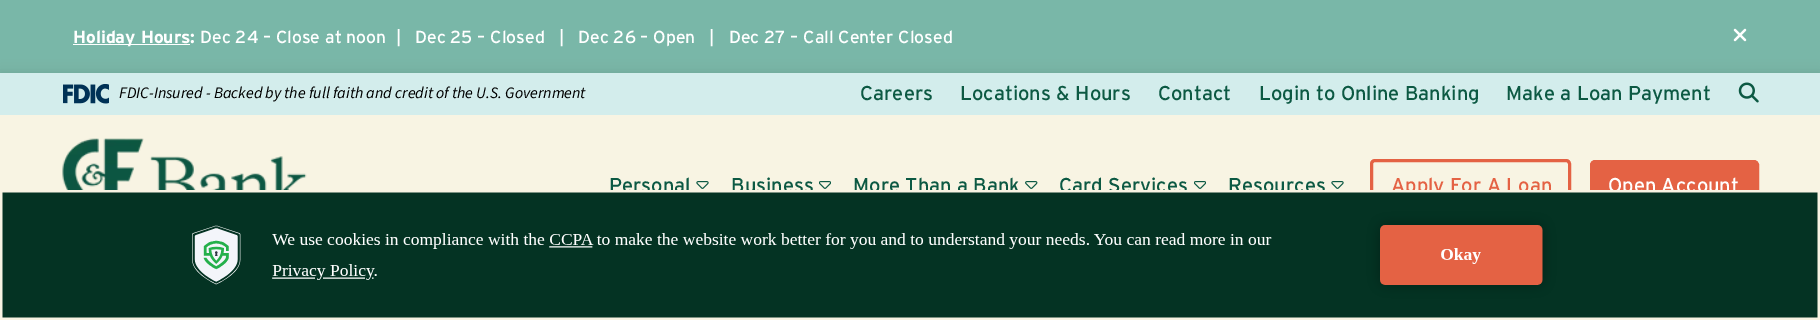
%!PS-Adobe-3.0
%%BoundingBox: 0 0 1820 320
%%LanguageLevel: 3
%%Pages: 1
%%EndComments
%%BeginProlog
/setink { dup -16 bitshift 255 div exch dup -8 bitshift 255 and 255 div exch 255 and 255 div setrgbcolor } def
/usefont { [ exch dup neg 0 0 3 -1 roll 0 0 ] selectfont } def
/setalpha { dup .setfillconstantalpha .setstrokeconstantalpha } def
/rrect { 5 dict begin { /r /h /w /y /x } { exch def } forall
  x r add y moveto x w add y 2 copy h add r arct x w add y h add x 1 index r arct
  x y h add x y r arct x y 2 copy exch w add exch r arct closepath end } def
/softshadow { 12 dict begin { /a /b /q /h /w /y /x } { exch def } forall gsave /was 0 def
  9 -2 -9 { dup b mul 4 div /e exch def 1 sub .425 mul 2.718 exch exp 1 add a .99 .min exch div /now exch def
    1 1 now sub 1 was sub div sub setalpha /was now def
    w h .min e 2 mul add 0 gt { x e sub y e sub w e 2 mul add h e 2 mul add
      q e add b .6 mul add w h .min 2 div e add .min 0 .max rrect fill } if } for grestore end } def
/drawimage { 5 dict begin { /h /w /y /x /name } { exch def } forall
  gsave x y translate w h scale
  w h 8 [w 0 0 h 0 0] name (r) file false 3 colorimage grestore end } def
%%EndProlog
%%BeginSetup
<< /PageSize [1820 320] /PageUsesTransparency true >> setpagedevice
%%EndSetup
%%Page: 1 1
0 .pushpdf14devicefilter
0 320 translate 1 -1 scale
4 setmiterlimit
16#79B7A8 setink
0 0 1820 320 rectfill
16#FFFFFF setink
73 44 117 1 rectfill
/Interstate-Bold 17.5 usefont
73 43 moveto (Holiday Hours:) show
/Interstate-Regular 17.5 usefont
200 43 moveto (Dec 24 – Close at noon  |   Dec 25 – Closed   |   Dec 26 – Open   |   Dec 27 – Call Center Closed) show
(img1.raw) 1733 28 14 14 drawimage
16#000000 setink
0 73 1820 182 0 6 0.1 softshadow
16#D3EDEC setink
0 73 1820 42 rectfill
(img2.raw) 63 84 46 20 drawimage
/SourceSans3-ExtraLightItalic 16 usefont
16#000000 setink
119 98 moveto (FDIC-Insured - Backed by the full faith and credit of the U.S. Government) show
/Interstate-Regular 20 usefont
16#0C5943 setink
[
    [(Careers) 860 100]
    [(Locations & Hours) 960 100]
    [(Contact) 1158 100]
    [(Login to Online Banking) 1259 100]
    [(Make a Loan Payment) 1506 100]
] { aload pop moveto show } forall
(img3.raw) 1738 82 21 21 drawimage
16#F8F4E3 setink
0 115 1820 75 rectfill
(img4.raw) 62 138 245 52 drawimage
16#0C5943 setink
609 192 moveto (Personal) show
(img5.raw) 696 181 13 8 drawimage
731 192 moveto (Business) show
(img6.raw) 819 181 12 8 drawimage
853 192 moveto (More Than a Bank) show
(img7.raw) 1025 181 13 8 drawimage
1059 192 moveto (Card Services) show
(img6.raw) 1194 181 12 8 drawimage
1228 192 moveto (Resources) show
(img5.raw) 1331 181 13 8 drawimage
16#E46244 setink
3 setlinewidth
1371.5 160.5 198 49 3.5 rrect stroke
1391 192 moveto (Apply For A Loan) show
1590.5 160.5 168 49 4.5 rrect gsave fill grestore
1 setlinewidth
stroke
16#FFFFFF setink
1608 192 moveto (Open Account) show
(img8.raw) 0 190 1820 130 drawimage
.poppdf14devicefilter showpage
%%EOF
